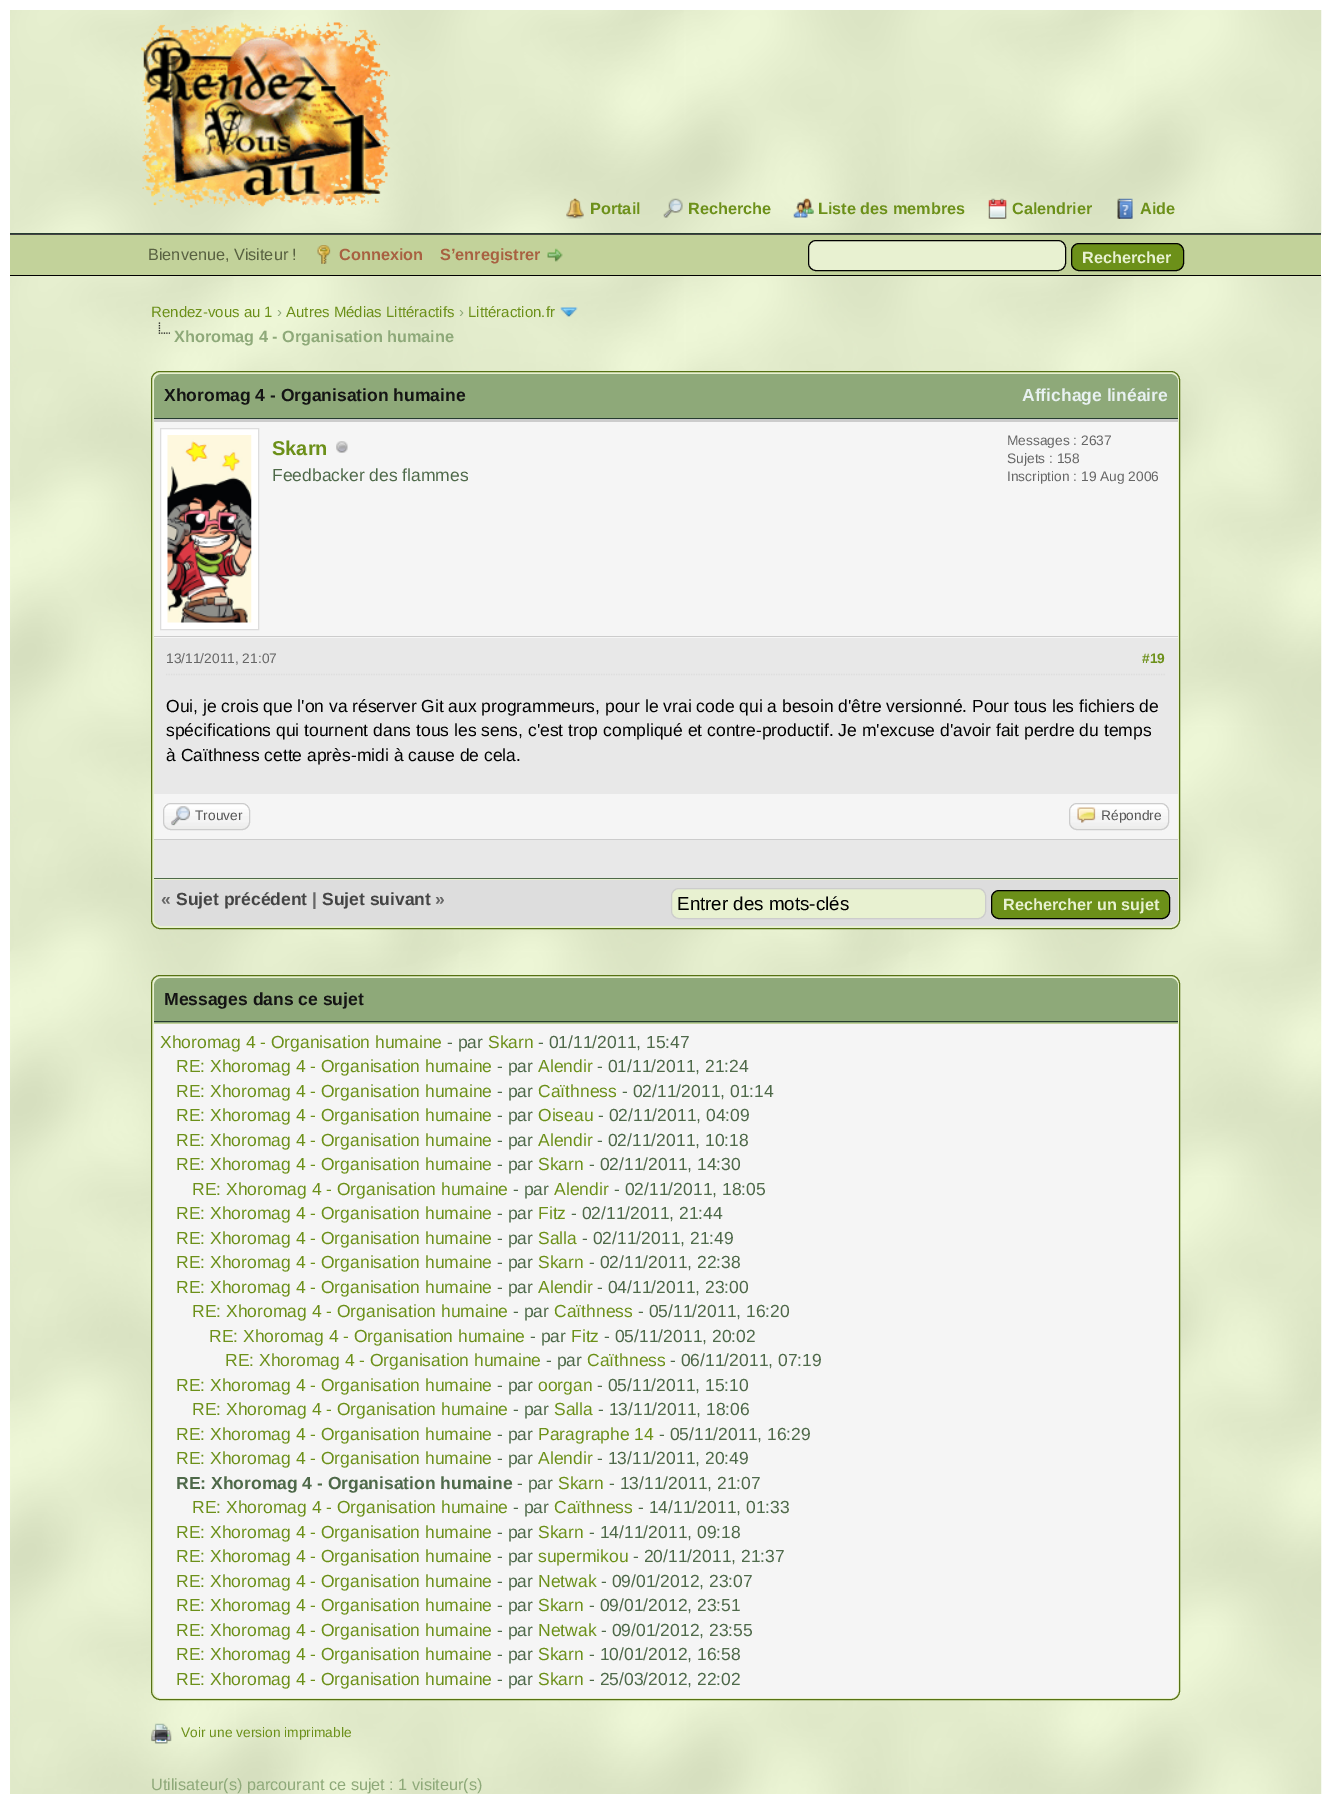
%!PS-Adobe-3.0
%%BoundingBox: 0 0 1331 1794
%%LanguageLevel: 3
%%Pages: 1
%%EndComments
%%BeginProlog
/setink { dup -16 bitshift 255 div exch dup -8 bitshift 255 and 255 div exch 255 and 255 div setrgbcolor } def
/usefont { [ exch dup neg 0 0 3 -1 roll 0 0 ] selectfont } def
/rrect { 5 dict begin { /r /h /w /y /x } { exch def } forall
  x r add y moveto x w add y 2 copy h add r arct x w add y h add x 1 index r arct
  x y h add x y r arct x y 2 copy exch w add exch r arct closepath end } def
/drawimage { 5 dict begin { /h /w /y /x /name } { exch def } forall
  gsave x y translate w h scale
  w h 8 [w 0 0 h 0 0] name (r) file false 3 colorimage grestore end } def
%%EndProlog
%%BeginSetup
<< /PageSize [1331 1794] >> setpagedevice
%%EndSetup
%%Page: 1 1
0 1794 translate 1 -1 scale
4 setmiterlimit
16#FFFFFF setink
0 0 1331 1794 rectfill
(img1.raw) 10 10 1312 224 drawimage
16#263C30 setink
10 233 1311 1 rectfill
(img2.raw) 141 22 250 186 drawimage
(img3.raw) 566 198 18 21 drawimage
/LiberationSans-Bold 16.25 usefont
16#6C9019 setink
590 214 moveto (Portail) show
(img4.raw) 663 198 20 20 drawimage
688 214 moveto (Recherche) show
(img5.raw) 793 198 21 20 drawimage
818 214 moveto (Liste des membres) show
(img6.raw) 988 198 19 21 drawimage
1012 214 moveto (Calendrier) show
(img7.raw) 1117 198 16 21 drawimage
1140 214 moveto (Aide) show
[
    [10 235 1311 40 16#C2D29A]
    [10 234 1311 1 16#444444]
    [10 275 1311 1 16#000000]
] { aload pop setink rectfill } forall
/LiberationSans-Regular 16.25 usefont
16#586141 setink
148 260 moveto (Bienvenue, Visiteur !) show
(img8.raw) 317 245 14 19 drawimage
/LiberationSans-Bold 16.25 usefont
16#A86141 setink
339 260 moveto (Connexion) show
440 260 moveto (S’enregistrer) show
(img9.raw) 547 248 16 14 drawimage
16#E8F1D1 setink
808.5 240.5 257 30 7.5 rrect gsave fill grestore
16#000000 setink
stroke
16#6C9019 setink
1071.5 243.5 112 27 7.5 rrect gsave fill grestore
16#000000 setink
stroke
16#E8F1D1 setink
1082 263 moveto (Rechercher) show
(img10.raw) 10 276 1312 1518 drawimage
/LiberationSans-Regular 15 usefont
16#6C9019 setink
151 317 moveto (Rendez-vous au 1) show
16#8EA979 setink
277 317 moveto (›) show
16#6C9019 setink
286 317 moveto (Autres Médias Littéractifs) show
16#8EA979 setink
459 317 moveto (›) show
16#6C9019 setink
468 317 moveto (Littéraction.fr) show
(img11.raw) 560 307 18 10 drawimage
(img12.raw) 158 322 12 12 drawimage
/LiberationSans-Bold 16.25 usefont
16#8EA979 setink
174 342 moveto (Xhoromag 4 - Organisation humaine) show
16#E8F1D1 setink
151.5 371.5 1028 557 8.5 rrect gsave fill grestore
16#577314 setink
stroke
16#8EA979 setink
162 374 moveto 1170 374 lineto 1174.5 374 1178 377.5 1178 382 curveto 1178 419 lineto 154 419 lineto 154 382 lineto 154 377.5 157.5 374 162 374 curveto closepath fill
16#263C30 setink
154 418 1024 1 rectfill
/LiberationSans-Bold 17.5 usefont
16#141414 setink
164 401 moveto (Xhoromag 4 - Organisation humaine) show
16#E8F1F1 setink
1022 401 moveto (Affichage linéaire) show
[
    [154 638 1024 240 16#E8E8E8]
    [154 878 1024 1 16#4E6949]
    [154 422 1024 216 16#F5F5F5]
    [154 419 1024 3 16#CCCCCC]
    [154 636 1024 1 16#CCCCCC]
] { aload pop setink rectfill } forall
16#FFFFFF setink
160.5 428.5 moveto 258.5 428.5 lineto 258.5 629.5 lineto 160.5 629.5 lineto closepath gsave fill grestore
16#DDDDDD setink
stroke
(img13.raw) 167 435 85 188 drawimage
/LiberationSans-Bold 20 usefont
16#6C9019 setink
272 455 moveto (Skarn) show
(img14.raw) 336 441 12 12 drawimage
/LiberationSans-Regular 17.5 usefont
16#4E6949 setink
272 481 moveto (Feedbacker des flammes) show
/LiberationSans-Regular 13.75 usefont
16#666666 setink
[
    [(Messages : 2637) 1007 445]
    [(Sujets : 158) 1007 463]
    [(Inscription : 19 Aug 2006) 1007 481]
] { aload pop moveto show } forall
16#DDDDDD setink
1.2 setlinewidth
[1.25 1.25] 0 setdash
166 674.5 moveto 1165 674.5 lineto stroke
16#666666 setink
166 663 moveto (13/11/2011, 21:07) show
/LiberationSans-Bold 13.75 usefont
16#6C9019 setink
1142 663 moveto (#19) show
/LiberationSans-Regular 17.5 usefont
16#000000 setink
[
    [(Oui, je crois que l'on va réserver Git aux programmeurs, pour le vrai code qui a besoin d'être versionné. Pour tous les fichiers de) 166 712]
    [(spécifications qui tournent dans tous les sens, c'est trop compliqué et contre-productif. Je m'excuse d'avoir fait perdre du temps) 166 736]
    [(à Caïthness cette après-midi à cause de cela.) 166 761]
] { aload pop moveto show } forall
16#F5F5F5 setink
154 794 1024 45 rectfill
16#CCCCCC setink
154 839 1024 1 rectfill
(img15.raw) 163 803 87 27 drawimage
1 setlinewidth
[] 0 setdash
163.5 803.5 86 26 7.5 rrect stroke
(img16.raw) 171 806 19 20 drawimage
/LiberationSans-Regular 13.75 usefont
16#555555 setink
195 820 moveto (Trouver) show
(img17.raw) 1069 803 100 27 drawimage
16#CCCCCC setink
1069.5 803.5 99 26 7.5 rrect stroke
(img18.raw) 1077 807 19 16 drawimage
16#555555 setink
1101 820 moveto (Répondre) show
16#DDDDDD setink
154 879 moveto 1178 879 lineto 1178 918 lineto 1178 922.5 1174.5 926 1170 926 curveto 162 926 lineto 157.5 926 154 922.5 154 918 curveto closepath fill
16#E8F1D1 setink
154 879 1024 1 rectfill
/LiberationSans-Bold 17.5 usefont
16#666666 setink
161 905 moveto («) show
16#444444 setink
176 905 moveto (Sujet précédent) show
16#666666 setink
312 905 moveto (|) show
16#444444 setink
322 905 moveto (Sujet suivant) show
16#666666 setink
435 905 moveto (») show
16#E8F1D1 setink
671.5 888.5 314 30 7.5 rrect gsave fill grestore
16#CCCCCC setink
stroke
/LiberationSans-Regular 18.75 usefont
16#000000 setink
677 910 moveto (Entrer des mots-clés) show
16#6C9019 setink
991.5 890.5 178 28 7.5 rrect gsave fill grestore
16#000000 setink
stroke
/LiberationSans-Bold 16.25 usefont
16#E8F1D1 setink
1003 910 moveto (Rechercher un sujet) show
151.5 975.5 1028 724 8.5 rrect gsave fill grestore
16#577314 setink
stroke
16#8EA979 setink
162 978 moveto 1170 978 lineto 1174.5 978 1178 981.5 1178 986 curveto 1178 1023 lineto 154 1023 lineto 154 986 lineto 154 981.5 157.5 978 162 978 curveto closepath fill
16#263C30 setink
154 1021 1024 1 rectfill
/LiberationSans-Bold 17.5 usefont
16#141414 setink
164 1005 moveto (Messages dans ce sujet) show
16#F5F5F5 setink
154 1023 moveto 1178 1023 lineto 1178 1690 lineto 1178 1694.5 1174.5 1698 1170 1698 curveto 162 1698 lineto 157.5 1698 154 1694.5 154 1690 curveto closepath fill
16#C2D29A setink
154 1023 1024 1 rectfill
/LiberationSans-Regular 17.5 usefont
16#6C9019 setink
160 1048 moveto (Xhoromag 4 - Organisation humaine) show
16#4E6949 setink
447 1048 moveto (- par) show
16#6C9019 setink
488 1048 moveto (Skarn) show
16#4E6949 setink
538 1048 moveto (- 01/11/2011, 15:47) show
16#6C9019 setink
176 1072 moveto (RE: Xhoromag 4 - Organisation humaine) show
16#4E6949 setink
497 1072 moveto (- par) show
16#6C9019 setink
538 1072 moveto (Alendir) show
16#4E6949 setink
597 1072 moveto (- 01/11/2011, 21:24) show
16#6C9019 setink
176 1097 moveto (RE: Xhoromag 4 - Organisation humaine) show
16#4E6949 setink
497 1097 moveto (- par) show
16#6C9019 setink
538 1097 moveto (Caïthness) show
16#4E6949 setink
622 1097 moveto (- 02/11/2011, 01:14) show
16#6C9019 setink
176 1121 moveto (RE: Xhoromag 4 - Organisation humaine) show
16#4E6949 setink
497 1121 moveto (- par) show
16#6C9019 setink
538 1121 moveto (Oiseau) show
16#4E6949 setink
598 1121 moveto (- 02/11/2011, 04:09) show
16#6C9019 setink
176 1146 moveto (RE: Xhoromag 4 - Organisation humaine) show
16#4E6949 setink
497 1146 moveto (- par) show
16#6C9019 setink
538 1146 moveto (Alendir) show
16#4E6949 setink
597 1146 moveto (- 02/11/2011, 10:18) show
16#6C9019 setink
176 1170 moveto (RE: Xhoromag 4 - Organisation humaine) show
16#4E6949 setink
497 1170 moveto (- par) show
16#6C9019 setink
538 1170 moveto (Skarn) show
16#4E6949 setink
589 1170 moveto (- 02/11/2011, 14:30) show
16#6C9019 setink
192 1195 moveto (RE: Xhoromag 4 - Organisation humaine) show
16#4E6949 setink
513 1195 moveto (- par) show
16#6C9019 setink
554 1195 moveto (Alendir) show
16#4E6949 setink
614 1195 moveto (- 02/11/2011, 18:05) show
16#6C9019 setink
176 1219 moveto (RE: Xhoromag 4 - Organisation humaine) show
16#4E6949 setink
497 1219 moveto (- par) show
16#6C9019 setink
538 1219 moveto (Fitz) show
16#4E6949 setink
571 1219 moveto (- 02/11/2011, 21:44) show
16#6C9019 setink
176 1244 moveto (RE: Xhoromag 4 - Organisation humaine) show
16#4E6949 setink
497 1244 moveto (- par) show
16#6C9019 setink
538 1244 moveto (Salla) show
16#4E6949 setink
582 1244 moveto (- 02/11/2011, 21:49) show
16#6C9019 setink
176 1268 moveto (RE: Xhoromag 4 - Organisation humaine) show
16#4E6949 setink
497 1268 moveto (- par) show
16#6C9019 setink
538 1268 moveto (Skarn) show
16#4E6949 setink
589 1268 moveto (- 02/11/2011, 22:38) show
16#6C9019 setink
176 1293 moveto (RE: Xhoromag 4 - Organisation humaine) show
16#4E6949 setink
497 1293 moveto (- par) show
16#6C9019 setink
538 1293 moveto (Alendir) show
16#4E6949 setink
597 1293 moveto (- 04/11/2011, 23:00) show
16#6C9019 setink
192 1317 moveto (RE: Xhoromag 4 - Organisation humaine) show
16#4E6949 setink
513 1317 moveto (- par) show
16#6C9019 setink
554 1317 moveto (Caïthness) show
16#4E6949 setink
638 1317 moveto (- 05/11/2011, 16:20) show
16#6C9019 setink
209 1342 moveto (RE: Xhoromag 4 - Organisation humaine) show
16#4E6949 setink
530 1342 moveto (- par) show
16#6C9019 setink
571 1342 moveto (Fitz) show
16#4E6949 setink
604 1342 moveto (- 05/11/2011, 20:02) show
16#6C9019 setink
225 1366 moveto (RE: Xhoromag 4 - Organisation humaine) show
16#4E6949 setink
546 1366 moveto (- par) show
16#6C9019 setink
587 1366 moveto (Caïthness) show
16#4E6949 setink
670 1366 moveto (- 06/11/2011, 07:19) show
16#6C9019 setink
176 1391 moveto (RE: Xhoromag 4 - Organisation humaine) show
16#4E6949 setink
497 1391 moveto (- par) show
16#6C9019 setink
538 1391 moveto (oorgan) show
16#4E6949 setink
597 1391 moveto (- 05/11/2011, 15:10) show
16#6C9019 setink
192 1415 moveto (RE: Xhoromag 4 - Organisation humaine) show
16#4E6949 setink
513 1415 moveto (- par) show
16#6C9019 setink
554 1415 moveto (Salla) show
16#4E6949 setink
598 1415 moveto (- 13/11/2011, 18:06) show
16#6C9019 setink
176 1440 moveto (RE: Xhoromag 4 - Organisation humaine) show
16#4E6949 setink
497 1440 moveto (- par) show
16#6C9019 setink
538 1440 moveto (Paragraphe 14) show
16#4E6949 setink
659 1440 moveto (- 05/11/2011, 16:29) show
16#6C9019 setink
176 1464 moveto (RE: Xhoromag 4 - Organisation humaine) show
16#4E6949 setink
497 1464 moveto (- par) show
16#6C9019 setink
538 1464 moveto (Alendir) show
16#4E6949 setink
597 1464 moveto (- 13/11/2011, 20:49) show
/LiberationSans-Bold 17.5 usefont
176 1489 moveto (RE: Xhoromag 4 - Organisation humaine) show
/LiberationSans-Regular 17.5 usefont
517 1489 moveto (- par) show
16#6C9019 setink
558 1489 moveto (Skarn) show
16#4E6949 setink
609 1489 moveto (- 13/11/2011, 21:07) show
16#6C9019 setink
192 1513 moveto (RE: Xhoromag 4 - Organisation humaine) show
16#4E6949 setink
513 1513 moveto (- par) show
16#6C9019 setink
554 1513 moveto (Caïthness) show
16#4E6949 setink
638 1513 moveto (- 14/11/2011, 01:33) show
16#6C9019 setink
176 1538 moveto (RE: Xhoromag 4 - Organisation humaine) show
16#4E6949 setink
497 1538 moveto (- par) show
16#6C9019 setink
538 1538 moveto (Skarn) show
16#4E6949 setink
589 1538 moveto (- 14/11/2011, 09:18) show
16#6C9019 setink
176 1562 moveto (RE: Xhoromag 4 - Organisation humaine) show
16#4E6949 setink
497 1562 moveto (- par) show
16#6C9019 setink
538 1562 moveto (supermikou) show
16#4E6949 setink
633 1562 moveto (- 20/11/2011, 21:37) show
16#6C9019 setink
176 1587 moveto (RE: Xhoromag 4 - Organisation humaine) show
16#4E6949 setink
497 1587 moveto (- par) show
16#6C9019 setink
538 1587 moveto (Netwak) show
16#4E6949 setink
601 1587 moveto (- 09/01/2012, 23:07) show
16#6C9019 setink
176 1611 moveto (RE: Xhoromag 4 - Organisation humaine) show
16#4E6949 setink
497 1611 moveto (- par) show
16#6C9019 setink
538 1611 moveto (Skarn) show
16#4E6949 setink
589 1611 moveto (- 09/01/2012, 23:51) show
16#6C9019 setink
176 1636 moveto (RE: Xhoromag 4 - Organisation humaine) show
16#4E6949 setink
497 1636 moveto (- par) show
16#6C9019 setink
538 1636 moveto (Netwak) show
16#4E6949 setink
601 1636 moveto (- 09/01/2012, 23:55) show
16#6C9019 setink
176 1660 moveto (RE: Xhoromag 4 - Organisation humaine) show
16#4E6949 setink
497 1660 moveto (- par) show
16#6C9019 setink
538 1660 moveto (Skarn) show
16#4E6949 setink
589 1660 moveto (- 10/01/2012, 16:58) show
16#6C9019 setink
176 1685 moveto (RE: Xhoromag 4 - Organisation humaine) show
16#4E6949 setink
497 1685 moveto (- par) show
16#6C9019 setink
538 1685 moveto (Skarn) show
16#4E6949 setink
589 1685 moveto (- 25/03/2012, 22:02) show
(img19.raw) 151 1723 21 21 drawimage
/LiberationSans-Regular 13.75 usefont
16#6C9019 setink
181 1737 moveto (Voir une version imprimable) show
/LiberationSans-Regular 16.25 usefont
16#8EA979 setink
151 1790 moveto (Utilisateur\(s\) parcourant ce sujet : 1 visiteur\(s\)) show
showpage
%%EOF
